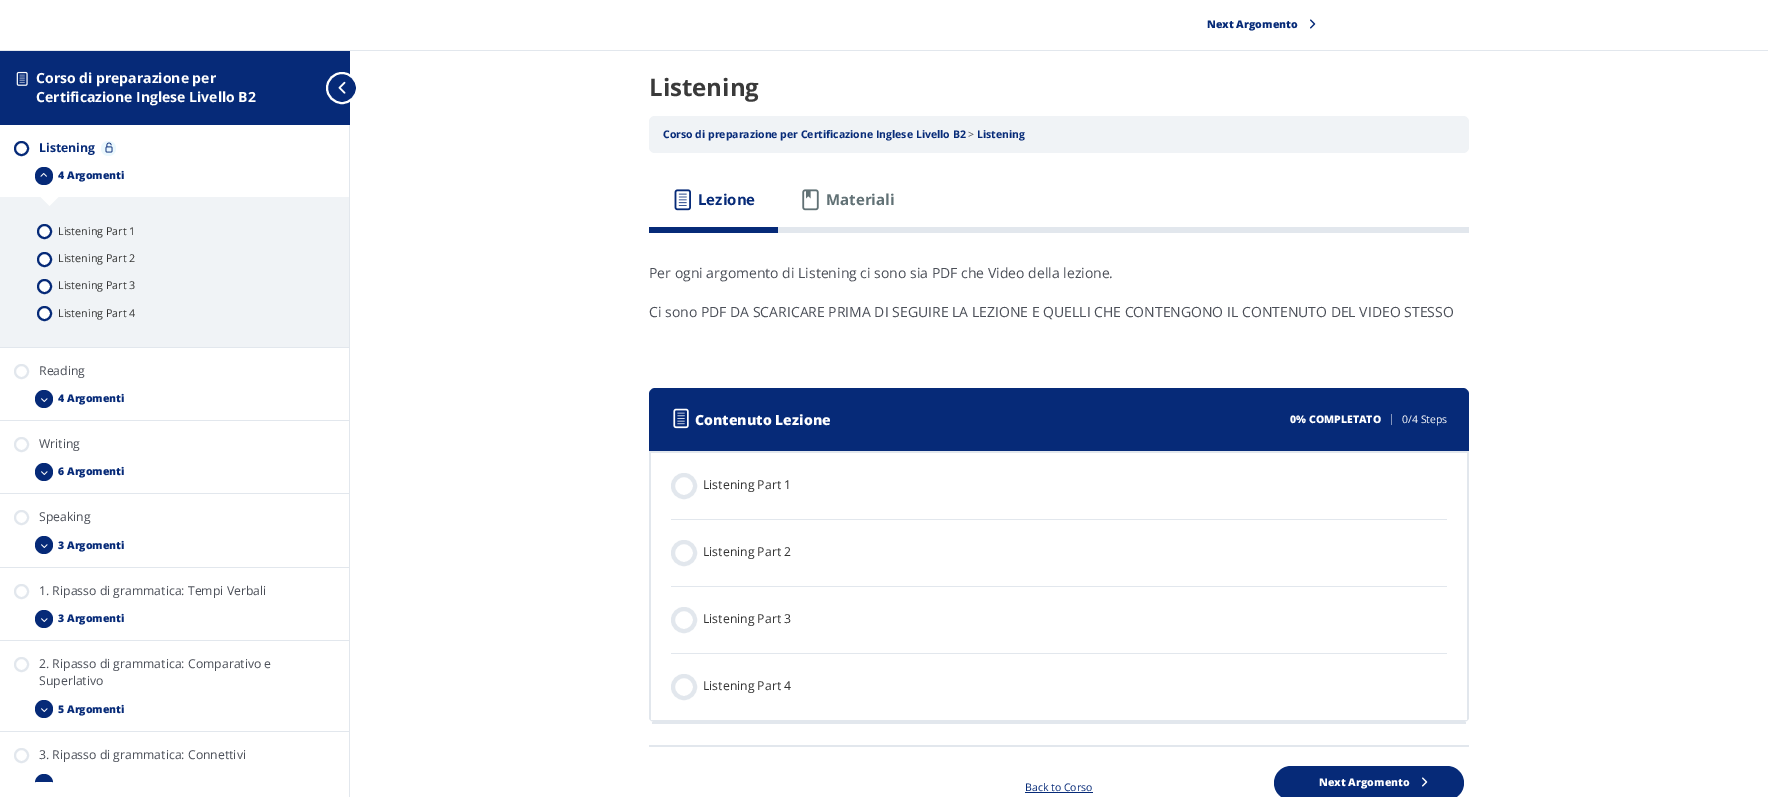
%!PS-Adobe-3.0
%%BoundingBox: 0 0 1768 797
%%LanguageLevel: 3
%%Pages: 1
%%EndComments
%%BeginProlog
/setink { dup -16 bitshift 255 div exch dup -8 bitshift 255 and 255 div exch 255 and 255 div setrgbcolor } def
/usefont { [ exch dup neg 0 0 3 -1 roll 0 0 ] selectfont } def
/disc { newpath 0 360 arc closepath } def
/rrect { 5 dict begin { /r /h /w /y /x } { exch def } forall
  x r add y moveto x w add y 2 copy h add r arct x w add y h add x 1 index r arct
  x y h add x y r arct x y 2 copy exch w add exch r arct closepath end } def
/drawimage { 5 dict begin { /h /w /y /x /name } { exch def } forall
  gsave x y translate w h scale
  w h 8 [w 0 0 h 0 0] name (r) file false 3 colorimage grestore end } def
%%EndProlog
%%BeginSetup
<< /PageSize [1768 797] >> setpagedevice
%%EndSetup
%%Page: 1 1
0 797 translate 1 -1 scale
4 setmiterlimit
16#FFFFFF setink
0 0 1768 797 rectfill
16#E2E7ED setink
349 125 1 672 rectfill
16#062A78 setink
0 51 350 74 rectfill
(img1.raw) 16 71 12 15 drawimage
/OpenSans-Bold 14 usefont
16#FFFFFF setink
36 83 moveto (Corso di preparazione per) show
36 102 moveto (Certificazione Inglese Livello B2) show
16#062A78 setink
342 88 15 disc gsave fill grestore
16#FFFFFF setink
2 setlinewidth
stroke
(img2.raw) 338 81 8 13 drawimage
16#E2E7ED setink
0 347 349 1 rectfill
16#062A78 setink
21.5 148.5 6.5 disc stroke
/OpenSans-Bold 12.25 usefont
39 152 moveto (Listening) show
16#EBF8FD setink
108.5 148.5 7.5 disc fill
(img3.raw) 105 142 8 11 drawimage
16#062A78 setink
44 185 moveto 32 185 32 167 44 167 curveto 56 167 56 185 44 185 curveto closepath fill
(img4.raw) 40 173 7 4 drawimage
/OpenSans-ExtraBold 10.5 usefont
58 179 moveto (4 Argomenti) show
16#F0F3F6 setink
0 197 349 150 rectfill
gsave
0 197 349 150 rectclip
16#FFFFFF setink
40.5 197 moveto 49.5 187.5 lineto 58.5 197 lineto 49.5 206 lineto closepath fill
grestore
16#FFFFFF setink
44.5 231.5 6.5 disc gsave fill grestore
16#062A78 setink
stroke
/OpenSans-Regular 10.75 usefont
16#333333 setink
58 235 moveto (Listening Part 1) show
16#FFFFFF setink
44.5 259.5 6.5 disc gsave fill grestore
16#062A78 setink
stroke
16#333333 setink
58 262 moveto (Listening Part 2) show
16#FFFFFF setink
44.5 286.5 6.5 disc gsave fill grestore
16#062A78 setink
stroke
16#333333 setink
58 289 moveto (Listening Part 3) show
16#FFFFFF setink
44.5 313.5 6.5 disc gsave fill grestore
16#062A78 setink
stroke
16#333333 setink
58 317 moveto (Listening Part 4) show
16#E2E7ED setink
0 420 349 1 rectfill
21.5 371.5 6.5 disc stroke
/OpenSans-Regular 12.25 usefont
16#4B4F58 setink
39 375 moveto (Reading) show
16#062A78 setink
44 399 9 disc fill
(img5.raw) 41 398 7 4 drawimage
/OpenSans-ExtraBold 10.5 usefont
58 402 moveto (4 Argomenti) show
16#E2E7ED setink
0 493 349 1 rectfill
21.5 444.5 6.5 disc stroke
/OpenSans-Regular 12.25 usefont
16#4B4F58 setink
39 448 moveto (Writing) show
16#062A78 setink
44 472 9 disc fill
(img5.raw) 41 471 7 4 drawimage
/OpenSans-ExtraBold 10.5 usefont
58 475 moveto (6 Argomenti) show
16#E2E7ED setink
0 567 349 1 rectfill
21.5 517.5 6.5 disc stroke
/OpenSans-Regular 12.25 usefont
16#4B4F58 setink
39 521 moveto (Speaking) show
16#062A78 setink
44 545 9 disc fill
(img5.raw) 41 544 7 4 drawimage
/OpenSans-ExtraBold 10.5 usefont
58 549 moveto (3 Argomenti) show
16#E2E7ED setink
0 640 349 1 rectfill
21.5 591.5 6.5 disc stroke
/OpenSans-Regular 12.25 usefont
16#4B4F58 setink
39 595 moveto (1. Ripasso di grammatica: Tempi Verbali) show
16#062A78 setink
44 619 9 disc fill
(img5.raw) 41 618 7 4 drawimage
/OpenSans-ExtraBold 10.5 usefont
58 622 moveto (3 Argomenti) show
16#E2E7ED setink
0 731 349 1 rectfill
21.5 664.5 6.5 disc stroke
/OpenSans-Regular 12.25 usefont
16#4B4F58 setink
39 668 moveto (2. Ripasso di grammatica: Comparativo e) show
39 685 moveto (Superlativo) show
16#062A78 setink
44 709 9 disc fill
(img5.raw) 41 708 7 4 drawimage
/OpenSans-ExtraBold 10.5 usefont
58 713 moveto (5 Argomenti) show
16#E2E7ED setink
21.5 755.5 6.5 disc stroke
/OpenSans-Regular 12.25 usefont
16#4B4F58 setink
39 759 moveto (3. Ripasso di grammatica: Connettivi) show
16#062A78 setink
44 774 moveto 49 774 53 778 53 783 curveto 53 782 lineto 35 782 lineto 35 783 lineto 35 778 39 774 44 774 curveto closepath fill
16#E2E7ED setink
0 50 1768 1 rectfill
/OpenSans-ExtraBold 10.5 usefont
16#062A78 setink
1207 28 moveto (Next Argomento) show
(img6.raw) 1310 19 6 10 drawimage
/OpenSans-Bold 24 usefont
16#3A3A3A setink
649 96 moveto (Listening) show
16#F0F3F6 setink
649 116 820 37 6 rrect fill
/OpenSans-Bold 10.5 usefont
16#062A78 setink
663 138 moveto (Corso di preparazione per Certificazione Inglese Livello B2) show
/OpenSans-Regular 10.5 usefont
16#4B4F58 setink
968 138 moveto (>) show
/OpenSans-Bold 10.5 usefont
16#062A78 setink
977 138 moveto (Listening) show
(img7.raw) 674 189 17 22 drawimage
/OpenSans-Bold 15 usefont
698 205 moveto (Lezione) show
649 227 129 6 rectfill
(img8.raw) 802 189 17 22 drawimage
16#617175 setink
826 205 moveto (Materiali) show
16#E2E7ED setink
778 227 691 6 rectfill
/OpenSans-Regular 14 usefont
16#4B4F58 setink
649 278 moveto (Per ogni argomento di Listening ci sono sia PDF che Video della lezione.) show
649 317 moveto (Ci sono PDF DA SCARICARE PRIMA DI SEGUIRE LA LEZIONE E QUELLI CHE CONTENGONO IL CONTENUTO DEL VIDEO STESSO) show
16#E2E7ED setink
652 722 814 2 rectfill
16#062A78 setink
655 388 moveto 652 388 649 391 649 394 curveto 649 451 lineto 1469 451 lineto 1469 394 lineto 1469 391 1466 388 1463 388 curveto closepath fill
(img9.raw) 673 408 16 21 drawimage
/OpenSans-ExtraBold 14 usefont
16#FFFFFF setink
695 425 moveto (Contenuto Lezione) show
16#8395BC setink
1391 414 1 11 rectfill
/OpenSans-ExtraBold 10.5 usefont
16#FFFFFF setink
1290 423 moveto (0% COMPLETATO) show
/OpenSans-Regular 10.5 usefont
1402 423 moveto (0/4 Steps) show
16#E2E7ED setink
649 451 moveto 649 718 lineto 649 720 652 722 655 722 curveto 1463 722 lineto 1466 722 1469 720 1469 718 curveto 1469 451 lineto closepath 651 453 moveto 651 720 lineto 1467 720 lineto 1467 453 lineto closepath eofill
671 519 776 1 rectfill
4 setlinewidth
684 486 11 disc stroke
/OpenSans-Regular 12.25 usefont
16#333333 setink
703 489 moveto (Listening Part 1) show
16#E2E7ED setink
671 586 776 1 rectfill
684 553 11 disc stroke
16#333333 setink
703 556 moveto (Listening Part 2) show
16#E2E7ED setink
671 653 776 1 rectfill
684 620 11 disc stroke
16#333333 setink
703 623 moveto (Listening Part 3) show
16#E2E7ED setink
684 687 11 disc stroke
16#333333 setink
703 690 moveto (Listening Part 4) show
16#E2E7ED setink
649 745 820 2 rectfill
/OpenSans-Regular 10.5 usefont
16#062A78 setink
1025 791 moveto (Back to Corso) show
1025 792 68 1 rectfill
1274 766 190 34 17 rrect fill
/OpenSans-ExtraBold 10.5 usefont
16#FFFFFF setink
1319 786 moveto (Next Argomento) show
(img10.raw) 1422 777 6 10 drawimage
showpage
%%EOF
